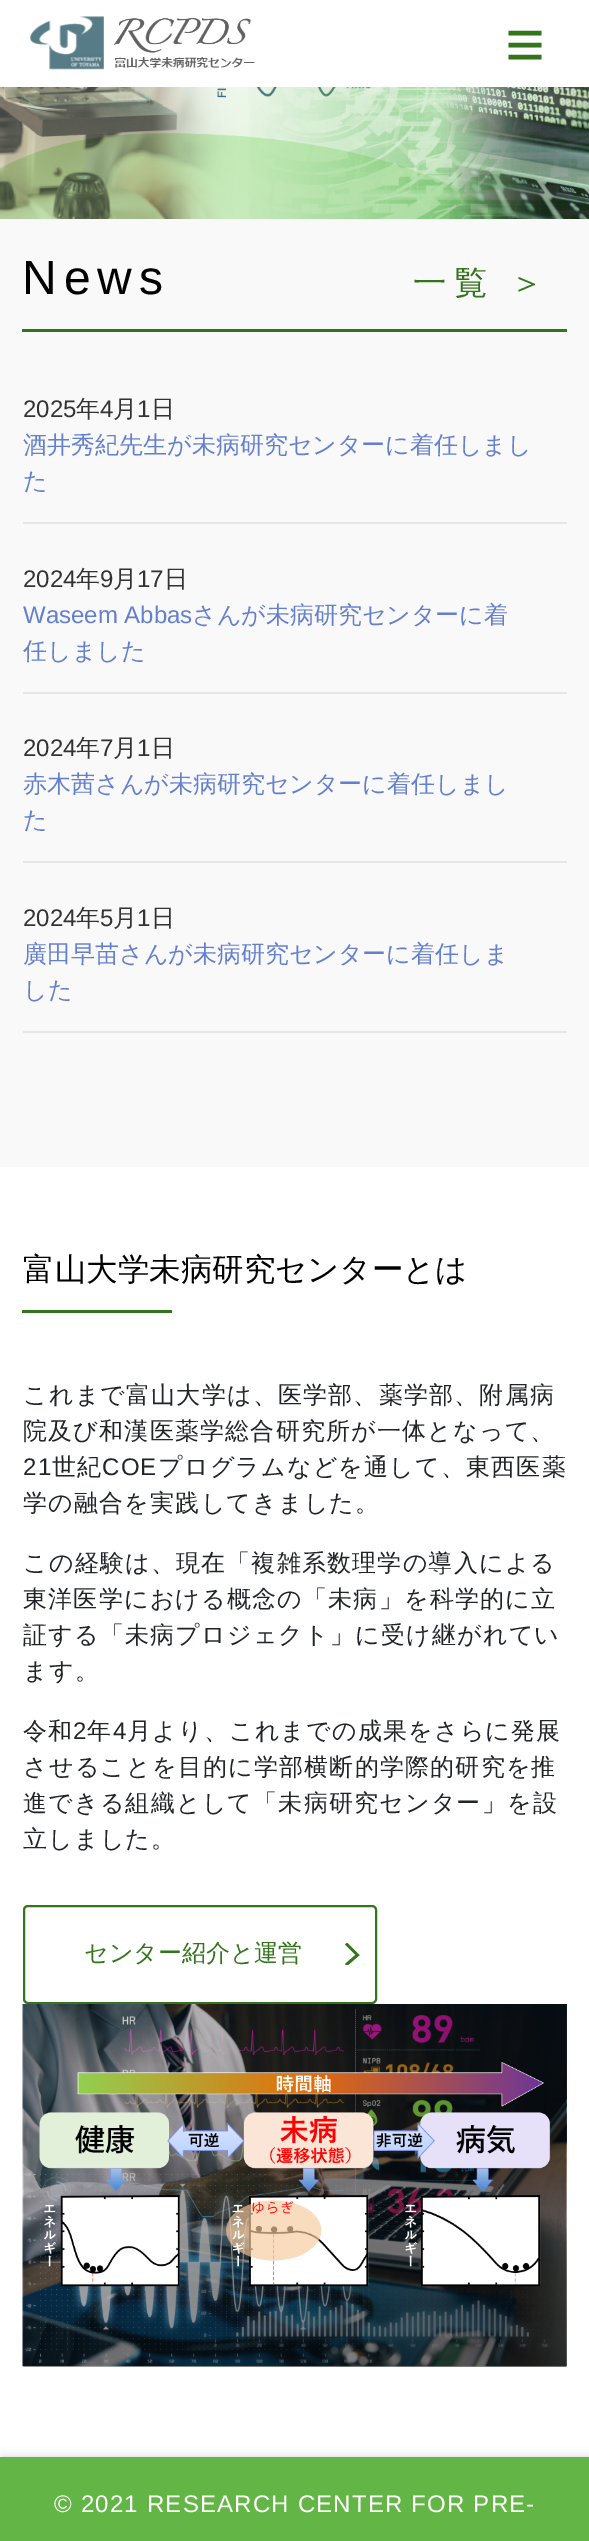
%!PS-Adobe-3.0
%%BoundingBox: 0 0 589 2541
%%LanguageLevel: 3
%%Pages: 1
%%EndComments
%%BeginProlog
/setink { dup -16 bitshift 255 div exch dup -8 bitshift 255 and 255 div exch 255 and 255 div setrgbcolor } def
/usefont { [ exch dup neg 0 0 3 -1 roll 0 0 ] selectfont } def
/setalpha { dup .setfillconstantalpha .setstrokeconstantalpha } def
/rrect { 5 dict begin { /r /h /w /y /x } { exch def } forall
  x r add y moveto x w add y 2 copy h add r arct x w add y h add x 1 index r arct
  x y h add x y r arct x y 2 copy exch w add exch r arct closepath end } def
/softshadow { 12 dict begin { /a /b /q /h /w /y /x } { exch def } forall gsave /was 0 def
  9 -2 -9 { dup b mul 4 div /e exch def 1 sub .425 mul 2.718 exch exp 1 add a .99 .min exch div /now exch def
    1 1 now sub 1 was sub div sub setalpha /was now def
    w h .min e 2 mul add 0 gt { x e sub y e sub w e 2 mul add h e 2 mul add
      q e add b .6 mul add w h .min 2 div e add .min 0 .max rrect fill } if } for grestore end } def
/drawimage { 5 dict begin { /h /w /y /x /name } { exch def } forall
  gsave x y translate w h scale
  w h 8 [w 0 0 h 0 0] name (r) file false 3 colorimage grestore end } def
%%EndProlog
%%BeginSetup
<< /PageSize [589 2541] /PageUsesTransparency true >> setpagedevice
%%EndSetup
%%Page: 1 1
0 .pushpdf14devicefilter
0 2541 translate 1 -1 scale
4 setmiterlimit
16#FFFFFF setink
0 0 589 2541 rectfill
(img1.raw) 0 87 589 132 drawimage
(img2.raw) 30 16 225 54 drawimage
16#33751B setink
4.5 setlinewidth
508.5 33 moveto 541.5 33 lineto 508.5 45 moveto 541.5 45 lineto 508.5 57 moveto 541.5 57 lineto stroke
16#F9F9F9 setink
0 219 589 948 rectfill
16#33751B setink
22 329 545 3 rectfill
/LiberationSans-Regular 48 usefont
16#000000 setink
22 294 moveto 7 0 (News) ashow
/WenQuanYiZenHei-Medium 33.5 usefont
16#33751B setink
413 294 moveto -1 0 32 7 0 (一覧 ＞) awidthshow
16#E6E6E6 setink
23 522 544 2 rectfill
/LiberationSans-Regular 24 usefont
16#333333 setink
23 417 moveto (2025) show
/WenQuanYiZenHei-Medium 24 usefont
76 417 moveto (年) show
/LiberationSans-Regular 24 usefont
100 417 moveto (4) show
/WenQuanYiZenHei-Medium 24 usefont
113 417 moveto (月) show
/LiberationSans-Regular 24 usefont
137 417 moveto (1) show
/WenQuanYiZenHei-Medium 24 usefont
151 417 moveto (日) show
16#637FCF setink
23 453 moveto (酒井秀紀先生が未病研究センターに着任しまし) show
23 489 moveto (た) show
16#E6E6E6 setink
23 692 544 2 rectfill
/LiberationSans-Regular 24 usefont
16#333333 setink
23 587 moveto (2024) show
/WenQuanYiZenHei-Medium 24 usefont
76 587 moveto (年) show
/LiberationSans-Regular 24 usefont
100 587 moveto (9) show
/WenQuanYiZenHei-Medium 24 usefont
113 587 moveto (月) show
/LiberationSans-Regular 24 usefont
137 587 moveto (17) show
/WenQuanYiZenHei-Medium 24 usefont
164 587 moveto (日) show
/LiberationSans-Regular 24 usefont
16#637FCF setink
23 623 moveto (Waseem Abbas) show
/WenQuanYiZenHei-Medium 24 usefont
192 623 moveto (さんが未病研究センターに着) show
23 659 moveto (任しました) show
16#E6E6E6 setink
23 861 544 2 rectfill
/LiberationSans-Regular 24 usefont
16#333333 setink
23 756 moveto (2024) show
/WenQuanYiZenHei-Medium 24 usefont
76 756 moveto (年) show
/LiberationSans-Regular 24 usefont
100 756 moveto (7) show
/WenQuanYiZenHei-Medium 24 usefont
113 756 moveto (月) show
/LiberationSans-Regular 24 usefont
137 756 moveto (1) show
/WenQuanYiZenHei-Medium 24 usefont
151 756 moveto (日) show
16#637FCF setink
23 792 moveto (赤木茜さんが未病研究センターに着任しまし) show
23 828 moveto (た) show
16#E6E6E6 setink
23 1031 544 2 rectfill
/LiberationSans-Regular 24 usefont
16#333333 setink
23 926 moveto (2024) show
/WenQuanYiZenHei-Medium 24 usefont
76 926 moveto (年) show
/LiberationSans-Regular 24 usefont
100 926 moveto (5) show
/WenQuanYiZenHei-Medium 24 usefont
113 926 moveto (月) show
/LiberationSans-Regular 24 usefont
137 926 moveto (1) show
/WenQuanYiZenHei-Medium 24 usefont
151 926 moveto (日) show
16#637FCF setink
23 962 moveto (廣田早苗さんが未病研究センターに着任しま) show
23 998 moveto (した) show
/WenQuanYiZenHei-Medium 31.5 usefont
16#000000 setink
23 1280 moveto (富山大学未病研究センターとは) show
16#33751B setink
22 1310 150 3 rectfill
/WenQuanYiZenHei-Medium 24 usefont
16#212529 setink
23 1403 moveto 1.2 0 (これまで富山大学は、医学部、薬学部、附属病) ashow
23 1439 moveto 1.2 0 (院及び和漢医薬学総合研究所が一体となって、) ashow
/LiberationSans-Regular 24 usefont
23 1475 moveto 1.2 0 (21) ashow
/WenQuanYiZenHei-Medium 24 usefont
52 1475 moveto 1.2 0 (世紀) ashow
/LiberationSans-Regular 24 usefont
102 1475 moveto 1.2 0 (COE) ashow
/WenQuanYiZenHei-Medium 24 usefont
158 1475 moveto 1.2 0 (プログラムなどを通して、東西医薬) ashow
23 1511 moveto 1.2 0 (学の融合を実践してきました。) ashow
23 1571 moveto 1.2 0 (この経験は、現在「複雑系数理学の導入による) ashow
23 1607 moveto 1.2 0 (東洋医学における概念の「未病」を科学的に立) ashow
23 1643 moveto 1.2 0 (証する「未病プロジェクト」に受け継がれてい) ashow
23 1679 moveto 1.2 0 (ます。) ashow
23 1739 moveto 1.2 0 (令和) ashow
/LiberationSans-Regular 24 usefont
73 1739 moveto 1.2 0 (2) ashow
/WenQuanYiZenHei-Medium 24 usefont
87 1739 moveto 1.2 0 (年) ashow
/LiberationSans-Regular 24 usefont
113 1739 moveto 1.2 0 (4) ashow
/WenQuanYiZenHei-Medium 24 usefont
127 1739 moveto 1.2 0 (月より、これまでの成果をさらに発展) ashow
23 1775 moveto 1.2 0 (させることを目的に学部横断的学際的研究を推) ashow
23 1811 moveto 1.2 0 (進できる組織として「未病研究センター」を設) ashow
23 1847 moveto 1.2 0 (立しました。) ashow
gsave
345 1943 15 22 rectclip
16#33751B setink
2.8 setlinewidth
346 1943.5 moveto 357.5 1955 lineto 346 1965 lineto stroke
grestore
16#33751B setink
2 setlinewidth
24 1906 352 97 4 rrect stroke
84 1961 moveto (センター紹介と運営) show
(img3.raw) 22 2004 545 363 drawimage
16#000000 setink
3 2460 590 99 0 6 0.3 softshadow
16#63B645 setink
0 2457 589 84 rectfill
/LiberationSans-Regular 24 usefont
16#FFFFFF setink
54 2512 moveto 1.2 0 (© 2021 RESEARCH CENTER FOR PRE-) ashow
.poppdf14devicefilter showpage
%%EOF
